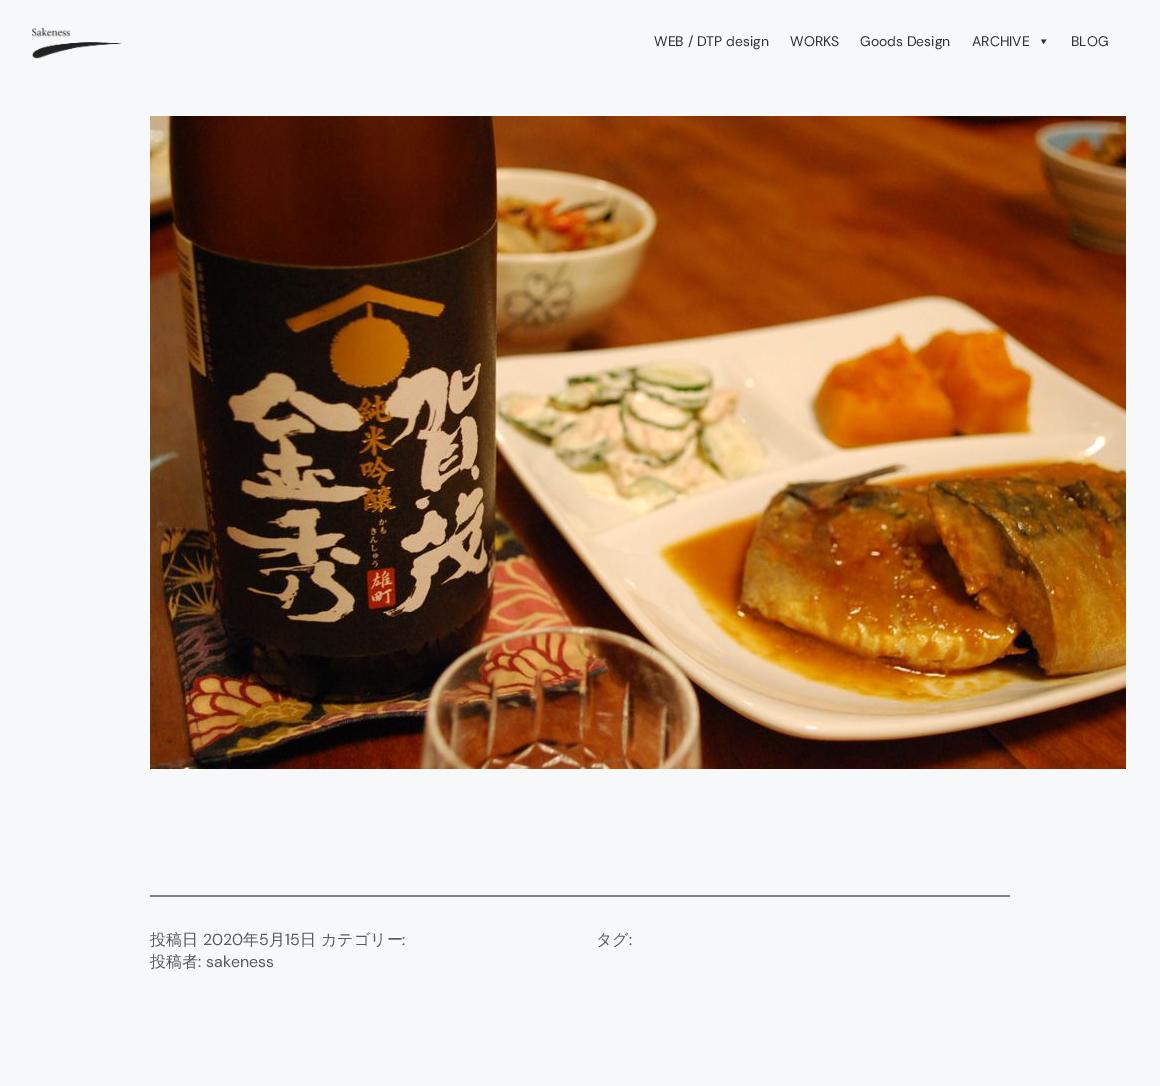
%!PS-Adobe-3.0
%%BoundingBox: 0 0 1160 1086
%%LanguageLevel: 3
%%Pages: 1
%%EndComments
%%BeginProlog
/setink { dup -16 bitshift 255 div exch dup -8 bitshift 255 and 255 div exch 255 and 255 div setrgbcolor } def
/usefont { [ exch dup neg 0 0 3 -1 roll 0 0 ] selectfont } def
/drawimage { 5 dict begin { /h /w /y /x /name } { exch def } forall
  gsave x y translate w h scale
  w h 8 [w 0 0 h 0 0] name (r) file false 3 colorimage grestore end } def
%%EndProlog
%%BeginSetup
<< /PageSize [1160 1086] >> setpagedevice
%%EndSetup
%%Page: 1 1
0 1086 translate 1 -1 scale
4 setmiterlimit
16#F6F8F9 setink
0 0 1160 1086 rectfill
(img1.raw) 32 27 90 32 drawimage
/DMSans-Regular 14 usefont
16#333333 setink
[
    [(WEB / DTP design) 654 46]
    [(WORKS) 790 46]
    [(Goods Design) 860 46]
    [(ARCHIVE) 972 46]
] { aload pop moveto show } forall
1046.5 39.5 moveto 1043.5 44 lineto 1041 39.5 lineto closepath fill
1071 46 moveto (BLOG) show
(img2.raw) 150 116 976 653 drawimage
16#808080 setink
150 895 860 2 rectfill
/WenQuanYiZenHei-Medium 16 usefont
16#5C5C5C setink
150 945 moveto (投稿日) show
/DMSans-Regular 16 usefont
203 945 moveto (2020) show
/WenQuanYiZenHei-Medium 16 usefont
243 945 moveto (年) show
/DMSans-Regular 16 usefont
259 945 moveto (5) show
/WenQuanYiZenHei-Medium 16 usefont
269 945 moveto (月) show
/DMSans-Regular 16 usefont
285 945 moveto (15) show
/WenQuanYiZenHei-Medium 16 usefont
300 945 moveto (日) show
321 945 moveto (カテゴリー) show
/DMSans-Regular 16 usefont
402 945 moveto (:) show
/WenQuanYiZenHei-Medium 16 usefont
150 967 moveto (投稿者) show
/DMSans-Regular 16 usefont
198 967 moveto (:) show
206 967 moveto (sakeness) show
/WenQuanYiZenHei-Medium 16 usefont
596 945 moveto (タグ) show
/DMSans-Regular 16 usefont
629 945 moveto (:) show
showpage
%%EOF
